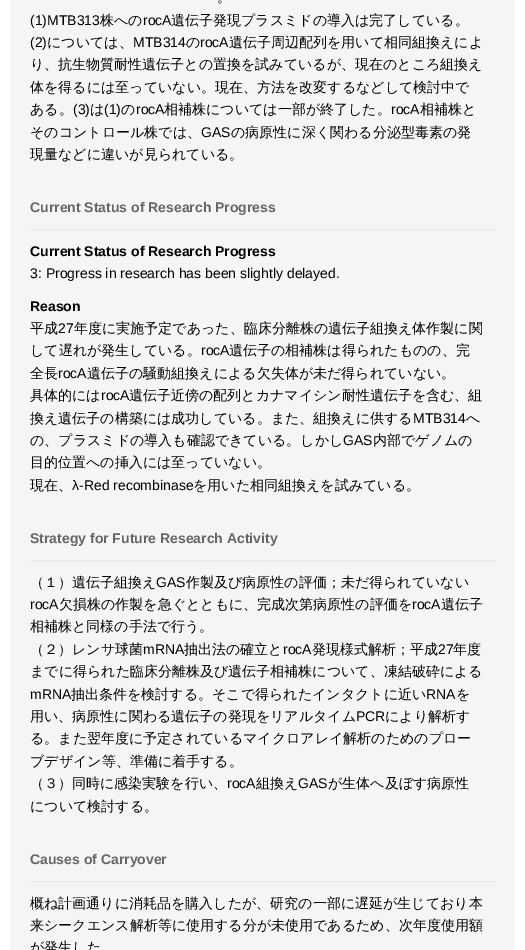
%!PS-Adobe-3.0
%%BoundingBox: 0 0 525 950
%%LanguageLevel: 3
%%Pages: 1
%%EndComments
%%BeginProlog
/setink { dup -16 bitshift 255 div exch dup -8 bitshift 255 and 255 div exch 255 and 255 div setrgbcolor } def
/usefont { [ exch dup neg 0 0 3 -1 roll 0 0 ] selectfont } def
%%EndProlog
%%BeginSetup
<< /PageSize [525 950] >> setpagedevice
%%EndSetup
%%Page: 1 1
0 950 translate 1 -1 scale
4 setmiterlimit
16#FFFFFF setink
0 0 525 950 rectfill
16#F5F5F5 setink
10 0 505 950 rectfill
/WenQuanYiZenHei-Medium 14 usefont
16#000000 setink
217 2 moveto (。) show
/LiberationSans-Regular 14 usefont
30 25 moveto (\(1\)MTB313) show
/WenQuanYiZenHei-Medium 14 usefont
100 25 moveto (株への) show
/LiberationSans-Regular 14 usefont
143 25 moveto (rocA) show
/WenQuanYiZenHei-Medium 14 usefont
171 25 moveto (遺伝子発現プラスミドの導入は完了している。) show
/LiberationSans-Regular 14 usefont
30 47 moveto (\(2\)) show
/WenQuanYiZenHei-Medium 14 usefont
47 47 moveto (については、) show
/LiberationSans-Regular 14 usefont
133 47 moveto (MTB314) show
/WenQuanYiZenHei-Medium 14 usefont
186 47 moveto (の) show
/LiberationSans-Regular 14 usefont
200 47 moveto (rocA) show
/WenQuanYiZenHei-Medium 14 usefont
[
    [(遺伝子周辺配列を用いて相同組換えによ) 229 47]
    [(り、抗生物質耐性遺伝子との置換を試みているが、現在のところ組換え) 30 69]
    [(体を得るには至っていない。現在、方法を改変するなどして検討中で) 30 92]
    [(ある。) 30 114]
] { aload pop moveto show } forall
/LiberationSans-Regular 14 usefont
73 114 moveto (\(3\)) show
/WenQuanYiZenHei-Medium 14 usefont
90 114 moveto (は) show
/LiberationSans-Regular 14 usefont
104 114 moveto (\(1\)) show
/WenQuanYiZenHei-Medium 14 usefont
121 114 moveto (の) show
/LiberationSans-Regular 14 usefont
136 114 moveto (rocA) show
/WenQuanYiZenHei-Medium 14 usefont
164 114 moveto (相補株については一部が終了した。) show
/LiberationSans-Regular 14 usefont
391 114 moveto (rocA) show
/WenQuanYiZenHei-Medium 14 usefont
420 114 moveto (相補株と) show
30 137 moveto (そのコントロール株では、) show
/LiberationSans-Regular 14 usefont
201 137 moveto (GAS) show
/WenQuanYiZenHei-Medium 14 usefont
231 137 moveto (の病原性に深く関わる分泌型毒素の発) show
30 159 moveto (現量などに違いが見られている。) show
16#DDDDDD setink
[1 1] 0 setdash
30 229.5 moveto 495 229.5 lineto stroke
/LiberationSans-Bold 14 usefont
16#666666 setink
30 212 moveto (Current Status of Research Progress) show
16#000000 setink
30 256 moveto (Current Status of Research Progress) show
/LiberationSans-Regular 14 usefont
30 278 moveto (3: Progress in research has been slightly delayed.) show
/LiberationSans-Bold 14 usefont
30 311 moveto (Reason) show
/WenQuanYiZenHei-Medium 14 usefont
30 333 moveto (平成) show
/LiberationSans-Regular 14 usefont
58 333 moveto (27) show
/WenQuanYiZenHei-Medium 14 usefont
74 333 moveto (年度に実施予定であった、臨床分離株の遺伝子組換え体作製に関) show
30 355 moveto (して遅れが発生している。) show
/LiberationSans-Regular 14 usefont
201 355 moveto (rocA) show
/WenQuanYiZenHei-Medium 14 usefont
229 355 moveto (遺伝子の相補株は得られたものの、完) show
30 378 moveto (全長) show
/LiberationSans-Regular 14 usefont
58 378 moveto (rocA) show
/WenQuanYiZenHei-Medium 14 usefont
87 378 moveto (遺伝子の騒動組換えによる欠失体が未だ得られていない。) show
30 400 moveto (具体的には) show
/LiberationSans-Regular 14 usefont
101 400 moveto (rocA) show
/WenQuanYiZenHei-Medium 14 usefont
129 400 moveto (遺伝子近傍の配列とカナマイシン耐性遺伝子を含む、組) show
30 423 moveto (換え遺伝子の構築には成功している。また、組換えに供する) show
/LiberationSans-Regular 14 usefont
413 423 moveto (MTB314) show
/WenQuanYiZenHei-Medium 14 usefont
466 423 moveto (へ) show
30 445 moveto (の、プラスミドの導入も確認できている。しかし) show
/LiberationSans-Regular 14 usefont
343 445 moveto (GAS) show
/WenQuanYiZenHei-Medium 14 usefont
[
    [(内部でゲノムの) 373 445]
    [(目的位置への挿入には至っていない。) 30 467]
    [(現在、) 30 490]
] { aload pop moveto show } forall
/LiberationSans-Regular 14 usefont
72 490 moveto (λ-Red recombinase) show
/WenQuanYiZenHei-Medium 14 usefont
193 490 moveto (を用いた相同組換えを試みている。) show
16#DDDDDD setink
30 560.5 moveto 495 560.5 lineto stroke
/LiberationSans-Bold 14 usefont
16#666666 setink
30 543 moveto (Strategy for Future Research Activity) show
/WenQuanYiZenHei-Medium 14 usefont
16#000000 setink
30 587 moveto (（１）遺伝子組換え) show
/LiberationSans-Regular 14 usefont
156 587 moveto (GAS) show
/WenQuanYiZenHei-Medium 14 usefont
186 587 moveto (作製及び病原性の評価；未だ得られていない) show
/LiberationSans-Regular 14 usefont
30 609 moveto (rocA) show
/WenQuanYiZenHei-Medium 14 usefont
59 609 moveto (欠損株の作製を急ぐとともに、完成次第病原性の評価を) show
/LiberationSans-Regular 14 usefont
412 609 moveto (rocA) show
/WenQuanYiZenHei-Medium 14 usefont
[
    [(遺伝子) 441 609]
    [(相補株と同様の手法で行う。) 30 631]
    [(（２）レンサ球菌) 30 654]
] { aload pop moveto show } forall
/LiberationSans-Regular 14 usefont
143 654 moveto (mRNA) show
/WenQuanYiZenHei-Medium 14 usefont
184 654 moveto (抽出法の確立と) show
/LiberationSans-Regular 14 usefont
283 654 moveto (rocA) show
/WenQuanYiZenHei-Medium 14 usefont
312 654 moveto (発現様式解析；平成) show
/LiberationSans-Regular 14 usefont
438 654 moveto (27) show
/WenQuanYiZenHei-Medium 14 usefont
453 654 moveto (年度) show
30 676 moveto (までに得られた臨床分離株及び遺伝子相補株について、凍結破砕による) show
/LiberationSans-Regular 14 usefont
30 699 moveto (mRNA) show
/WenQuanYiZenHei-Medium 14 usefont
71 699 moveto (抽出条件を検討する。そこで得られたインタクトに近い) show
/LiberationSans-Regular 14 usefont
426 699 moveto (RNA) show
/WenQuanYiZenHei-Medium 14 usefont
456 699 moveto (を) show
30 721 moveto (用い、病原性に関わる遺伝子の発現をリアルタイム) show
/LiberationSans-Regular 14 usefont
356 721 moveto (PCR) show
/WenQuanYiZenHei-Medium 14 usefont
[
    [(により解析す) 385 721]
    [(る。また翌年度に予定されているマイクロアレイ解析のためのプロー) 30 743]
    [(ブデザイン等、準備に着手する。) 30 766]
    [(（３）同時に感染実験を行い、) 30 788]
] { aload pop moveto show } forall
/LiberationSans-Regular 14 usefont
227 788 moveto (rocA) show
/WenQuanYiZenHei-Medium 14 usefont
256 788 moveto (組換え) show
/LiberationSans-Regular 14 usefont
298 788 moveto (GAS) show
/WenQuanYiZenHei-Medium 14 usefont
328 788 moveto (が生体へ及ぼす病原性) show
30 811 moveto (について検討する。) show
16#DDDDDD setink
30 881.5 moveto 495 881.5 lineto stroke
/LiberationSans-Bold 14 usefont
16#666666 setink
30 864 moveto (Causes of Carryover) show
/WenQuanYiZenHei-Medium 14 usefont
16#000000 setink
[
    [(概ね計画通りに消耗品を購入したが、研究の一部に遅延が生じており本) 30 908]
    [(来シークエンス解析等に使用する分が未使用であるため、次年度使用額) 30 930]
    [(が発生した) 30 952]
] { aload pop moveto show } forall
showpage
%%EOF
